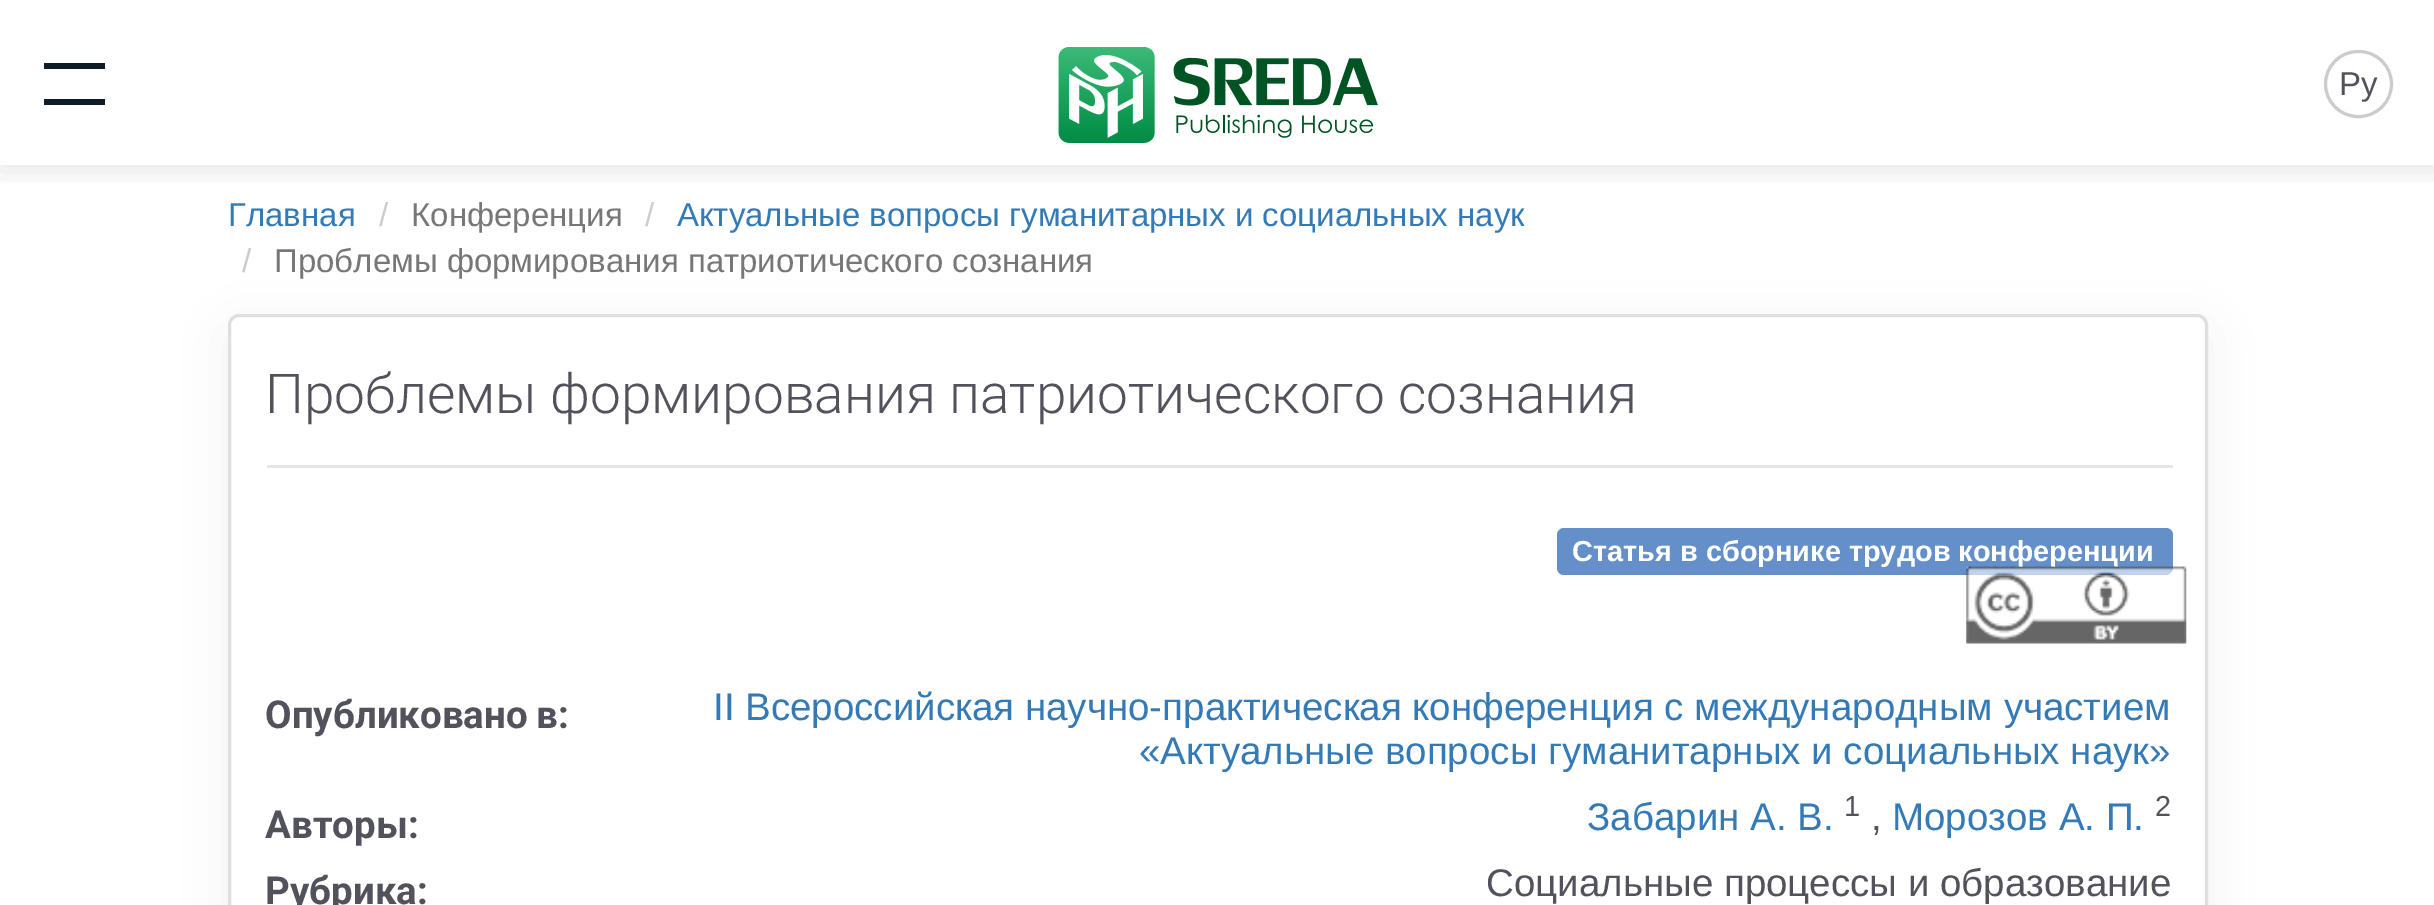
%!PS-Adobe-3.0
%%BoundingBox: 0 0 2434 905
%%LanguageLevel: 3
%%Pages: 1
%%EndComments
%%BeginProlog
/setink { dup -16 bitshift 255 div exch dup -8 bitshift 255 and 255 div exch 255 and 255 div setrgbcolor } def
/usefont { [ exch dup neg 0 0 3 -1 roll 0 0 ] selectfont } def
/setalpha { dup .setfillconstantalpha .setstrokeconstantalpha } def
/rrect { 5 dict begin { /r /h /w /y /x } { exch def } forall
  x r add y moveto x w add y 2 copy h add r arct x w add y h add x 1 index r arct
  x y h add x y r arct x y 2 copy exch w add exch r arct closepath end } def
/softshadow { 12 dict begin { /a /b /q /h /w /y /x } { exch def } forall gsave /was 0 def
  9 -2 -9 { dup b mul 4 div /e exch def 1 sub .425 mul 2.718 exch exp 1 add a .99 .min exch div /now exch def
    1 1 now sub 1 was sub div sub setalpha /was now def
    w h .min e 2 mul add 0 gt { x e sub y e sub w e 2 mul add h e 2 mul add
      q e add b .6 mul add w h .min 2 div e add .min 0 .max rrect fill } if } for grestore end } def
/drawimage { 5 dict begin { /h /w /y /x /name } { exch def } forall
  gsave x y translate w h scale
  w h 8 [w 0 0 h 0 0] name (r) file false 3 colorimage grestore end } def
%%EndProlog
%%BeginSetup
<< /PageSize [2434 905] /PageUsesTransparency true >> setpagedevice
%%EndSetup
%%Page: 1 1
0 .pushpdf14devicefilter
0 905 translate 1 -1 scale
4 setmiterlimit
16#FFFFFF setink
0 0 2434 905 rectfill
gsave
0 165 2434 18 rectclip
16#000000 setink
0 6 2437 165 0 14 0.1 softshadow
grestore
16#0E1C2A setink
44 63 61 6 rectfill
44 99 61 6 rectfill
(img1.raw) 1058 47 320 96 drawimage
16#CCCCCC setink
3 setlinewidth
2325.5 51.5 66 65 32.5 rrect stroke
/LiberationSans-Regular 33 usefont
16#52525C setink
2339 95 moveto (Ру) show
16#337AB7 setink
228 226 moveto (Главная) show
16#CCCCCC setink
379 226 moveto (/) show
16#777777 setink
411 226 moveto (Конференция) show
16#CCCCCC setink
645 226 moveto (/) show
16#337AB7 setink
677 226 moveto (Актуальные вопросы гуманитарных и социальных наук) show
16#CCCCCC setink
242 272 moveto (/) show
16#777777 setink
274 272 moveto (Проблемы формирования патриотического сознания) show
16#000000 setink
228 327 1980 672 11 27.5 0.05 softshadow
16#FFFFFF setink
229.5 315.5 1977 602 9.5 rrect gsave fill grestore
16#DFDFDF setink
stroke
16#E6E6E6 setink
267 465 1906 3 rectfill
/Roboto-Light 55 usefont
16#52525C setink
265 413 moveto (Проблемы формирования патриотического сознания) show
16#648FC9 setink
1557 528 616 47 7 rrect fill
/LiberationSans-Bold 28.9 usefont
16#FFFFFF setink
1572 561 moveto (Статья в сборнике трудов конференции) show
(img2.raw) 1966 566 221 78 drawimage
/Roboto-Bold 38.5 usefont
16#52525C setink
265 728 moveto -1 0 32 (Опубликовано в:) widthshow
/LiberationSans-Regular 38.5 usefont
16#337AB7 setink
713 720 moveto (II Всероссийская научно-практическая конференция с международным участием) show
1139 764 moveto («Актуальные вопросы гуманитарных и социальных наук») show
/Roboto-Bold 38.5 usefont
16#52525C setink
265 838 moveto (Авторы:) show
/LiberationSans-Regular 38.5 usefont
16#337AB7 setink
1587 830 moveto (Забарин А. В.) show
/LiberationSans-Regular 28.9 usefont
16#52525C setink
1844 816 moveto (1) show
/LiberationSans-Regular 38.5 usefont
1871 830 moveto (,) show
16#337AB7 setink
1892 830 moveto (Морозов А. П.) show
/LiberationSans-Regular 28.9 usefont
16#52525C setink
2155 816 moveto (2) show
/Roboto-Bold 38.5 usefont
265 904 moveto (Рубрика:) show
/LiberationSans-Regular 38.5 usefont
1486 896 moveto (Социальные процессы и образование) show
.poppdf14devicefilter showpage
%%EOF
